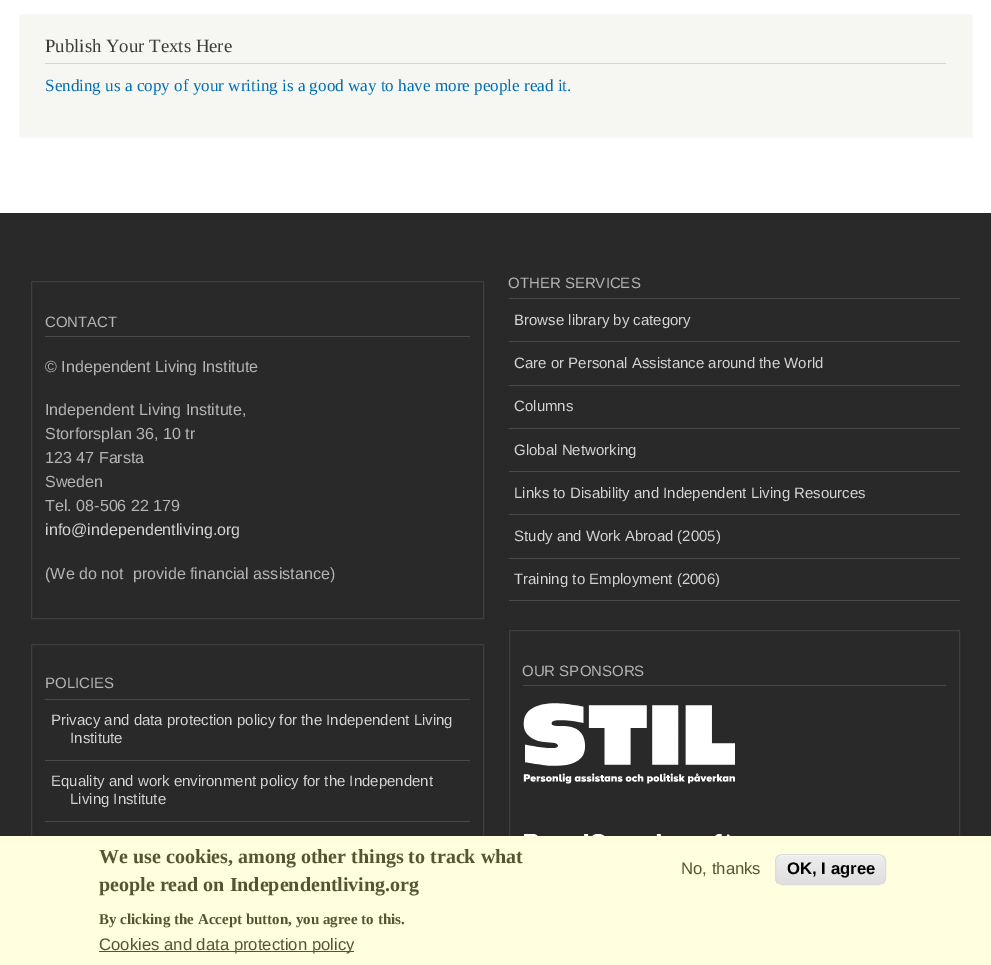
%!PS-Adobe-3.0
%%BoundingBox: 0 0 991 965
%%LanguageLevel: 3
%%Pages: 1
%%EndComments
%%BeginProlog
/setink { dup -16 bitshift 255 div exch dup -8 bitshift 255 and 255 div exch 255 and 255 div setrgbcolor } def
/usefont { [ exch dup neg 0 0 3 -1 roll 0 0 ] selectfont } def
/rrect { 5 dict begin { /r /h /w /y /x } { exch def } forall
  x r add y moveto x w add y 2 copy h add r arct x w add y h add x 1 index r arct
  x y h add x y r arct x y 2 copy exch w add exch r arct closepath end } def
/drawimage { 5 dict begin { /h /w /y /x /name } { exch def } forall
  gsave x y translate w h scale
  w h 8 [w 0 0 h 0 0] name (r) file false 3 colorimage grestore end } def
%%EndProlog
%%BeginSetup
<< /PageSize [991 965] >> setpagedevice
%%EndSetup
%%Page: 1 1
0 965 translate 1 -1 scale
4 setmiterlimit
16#FFFFFF setink
0 0 991 965 rectfill
16#F6F6F2 setink
19.5 14.5 moveto 972.5 14.5 lineto 972.5 137.5 lineto 19.5 137.5 lineto closepath gsave fill grestore
16#F9F9F9 setink
stroke
16#D6D6D6 setink
45 63 901 1 rectfill
/LiberationSerif-Regular 18.75 usefont
16#3B3B3B setink
45 52 moveto (Publish Your Texts Here) show
/LiberationSerif-Regular 17.1 usefont
16#0070B3 setink
45 91 moveto (Sending us a copy of your writing is a good way to have more people read it.) show
16#292929 setink
0 213 991 623 rectfill
16#3E3E3E setink
31.5 281.5 452 337 rectstroke
16#494949 setink
45 336 425 1 rectfill
/LiberationSans-Regular 15 usefont
16#B4B4B4 setink
45 327 moveto (CONTACT) show
/LiberationSans-Regular 16.1 usefont
[
    [(© Independent Living Institute) 45 372]
    [(Independent Living Institute,) 45 415]
    [(Storforsplan 36, 10 tr) 45 439]
    [(123 47 Farsta) 45 463]
    [(Sweden) 45 487]
    [(Tel. 08-506 22 179) 45 511]
] { aload pop moveto show } forall
16#D4D4D4 setink
45 535 moveto (info@independentliving.org) show
16#B4B4B4 setink
45 579 moveto (\(We do not  provide financial assistance\)) show
16#3E3E3E setink
31.5 644.5 452 194 rectstroke
16#494949 setink
45 699 425 1 rectfill
/LiberationSans-Regular 15 usefont
16#B4B4B4 setink
45 688 moveto (POLICIES) show
16#494949 setink
45 760 425 1 rectfill
16#D4D4D4 setink
51 725 moveto (Privacy and data protection policy for the Independent Living) show
70 743 moveto (Institute) show
16#494949 setink
45 821 425 1 rectfill
16#D4D4D4 setink
51 786 moveto (Equality and work environment policy for the Independent) show
70 804 moveto (Living Institute) show
16#494949 setink
509 298 451 1 rectfill
16#B4B4B4 setink
508 288 moveto (OTHER SERVICES) show
16#494949 setink
509 341 451 1 rectfill
16#D4D4D4 setink
514 325 moveto (Browse library by category) show
16#494949 setink
509 385 451 1 rectfill
16#D4D4D4 setink
514 368 moveto (Care or Personal Assistance around the World) show
16#494949 setink
509 428 451 1 rectfill
16#D4D4D4 setink
514 411 moveto (Columns) show
16#494949 setink
509 471 451 1 rectfill
16#D4D4D4 setink
514 455 moveto (Global Networking) show
16#494949 setink
509 514 451 1 rectfill
16#D4D4D4 setink
514 498 moveto (Links to Disability and Independent Living Resources) show
16#494949 setink
509 558 451 1 rectfill
16#D4D4D4 setink
514 541 moveto (Study and Work Abroad \(2005\)) show
16#494949 setink
509 600 451 1 rectfill
16#D4D4D4 setink
514 584 moveto (Training to Employment \(2006\)) show
16#3E3E3E setink
509.5 630.5 450 272 rectstroke
16#494949 setink
523 685 423 1 rectfill
16#B4B4B4 setink
522 676 moveto (OUR SPONSORS) show
(img1.raw) 523 703 212 81 drawimage
(img2.raw) 524 834 206 2 drawimage
16#FFFFE0 setink
0 836 991 129 rectfill
/LiberationSerif-Bold 20 usefont
16#555533 setink
99 863 moveto (We use cookies, among other things to track what) show
99 891 moveto (people read on Independentliving.org) show
/LiberationSerif-Bold 15 usefont
99 924 moveto (By clicking the Accept button, you agree to this.) show
99 951 255 1 rectfill
/LiberationSans-Regular 16.7 usefont
99 950 moveto (Cookies and data protection policy) show
681 874 moveto (No, thanks) show
gsave
775 854 111 31 8 rrect clip newpath
gsave 775 855 moveto 886 855 lineto 886 884 lineto 775 884 lineto closepath clip newpath
<< /ShadingType 2 /ColorSpace /DeviceRGB /Coords [831 855 831 884] /Extend [true true] /Function << /FunctionType 3 /Domain [0 1] /Functions [<< /FunctionType 2 /Domain [0 1] /C0 [0.929 0.929 0.929] /C1 [0.929 0.929 0.929] /N 1 >> << /FunctionType 2 /Domain [0 1] /C0 [0.929 0.929 0.929] /C1 [0.875 0.875 0.875] /N 1 >>] /Bounds [0.05] /Encode [0 1 0 1] >> >> shfill grestore
grestore
16#FFFFFF setink
782 856 moveto 879 856 lineto 882 856 885 859 885 862 curveto 885 851 869 855 863 855 curveto 798 855 lineto 792 855 776 851 776 862 curveto 776 859 779 856 782 856 curveto closepath fill
16#DCDCDC setink
775.5 854.5 110 30 7.5 rrect stroke
/LiberationSans-Bold 16.7 usefont
16#000000 setink
787 874 moveto (OK, I agree) show
showpage
%%EOF
